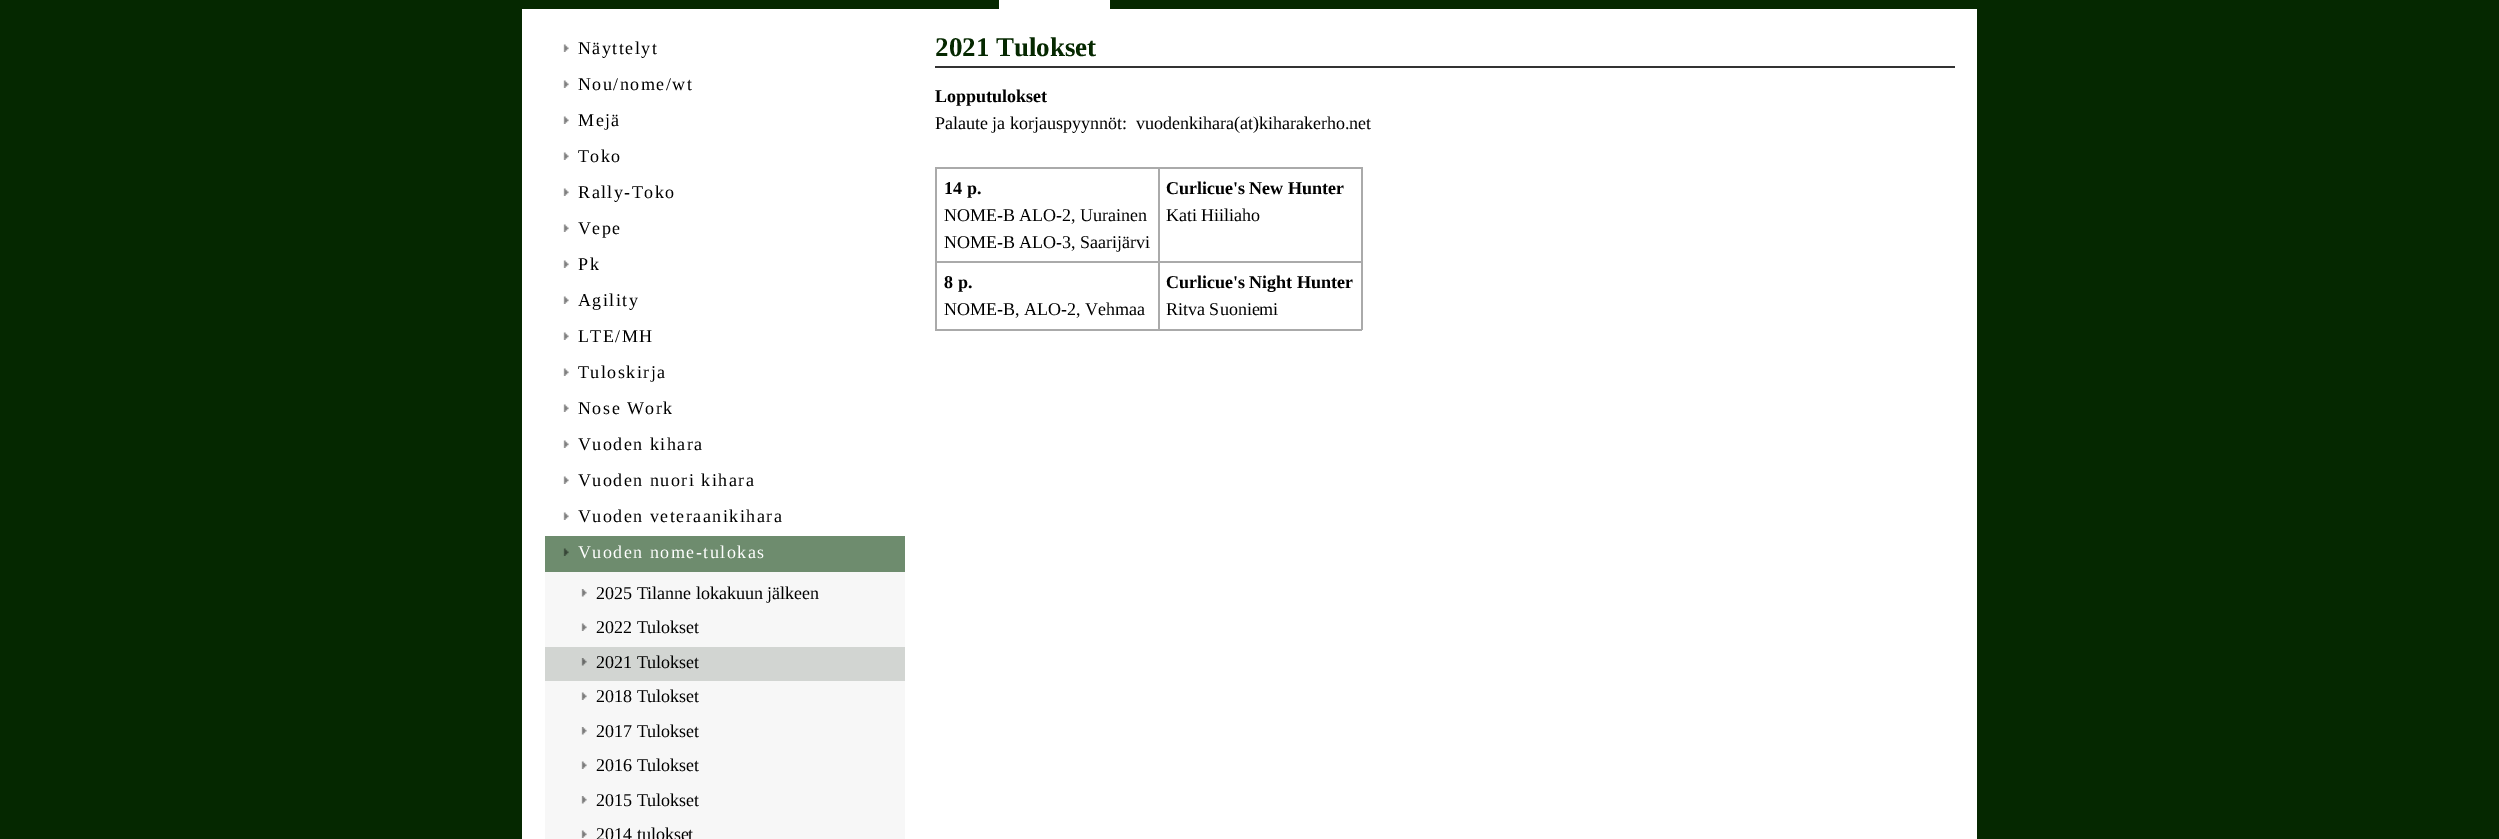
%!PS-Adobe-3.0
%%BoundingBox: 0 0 2499 839
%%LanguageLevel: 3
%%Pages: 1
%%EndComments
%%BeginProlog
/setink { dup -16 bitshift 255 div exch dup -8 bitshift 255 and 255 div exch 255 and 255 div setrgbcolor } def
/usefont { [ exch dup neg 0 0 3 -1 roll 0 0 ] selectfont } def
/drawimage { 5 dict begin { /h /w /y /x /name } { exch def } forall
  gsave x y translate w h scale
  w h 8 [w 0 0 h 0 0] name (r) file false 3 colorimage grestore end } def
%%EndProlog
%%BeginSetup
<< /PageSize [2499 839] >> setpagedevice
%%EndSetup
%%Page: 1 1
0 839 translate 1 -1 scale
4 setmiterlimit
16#052800 setink
0 0 2499 839 rectfill
16#FFFFFF setink
999 0 111 9 rectfill
522 9 1455 830 rectfill
(img1.raw) 563 44 6 8 drawimage
/LiberationSerif-Regular 18 usefont
16#000000 setink
578 54 moveto 1.5 0 (Näyttelyt) ashow
(img1.raw) 563 80 6 8 drawimage
578 90 moveto 1.5 0 (Nou/nome/wt) ashow
(img1.raw) 563 116 6 8 drawimage
578 126 moveto 1.5 0 (Mejä) ashow
(img1.raw) 563 152 6 8 drawimage
578 162 moveto 1.5 0 (Toko) ashow
(img1.raw) 563 188 6 8 drawimage
578 198 moveto 1.5 0 (Rally-Toko) ashow
(img1.raw) 563 224 6 8 drawimage
578 234 moveto 1.5 0 (Vepe) ashow
(img1.raw) 563 260 6 8 drawimage
578 270 moveto 1.5 0 (Pk) ashow
(img1.raw) 563 296 6 8 drawimage
578 306 moveto 1.5 0 (Agility) ashow
(img1.raw) 563 332 6 8 drawimage
578 342 moveto 1.5 0 (LTE/MH) ashow
(img1.raw) 563 368 6 8 drawimage
578 378 moveto 1.5 0 (Tuloskirja) ashow
(img1.raw) 563 404 6 8 drawimage
578 414 moveto 1.5 0 (Nose Work) ashow
(img1.raw) 563 440 6 8 drawimage
578 450 moveto 1.5 0 (Vuoden kihara) ashow
(img1.raw) 563 476 6 8 drawimage
578 486 moveto 1.5 0 (Vuoden nuori kihara) ashow
(img1.raw) 563 512 6 8 drawimage
578 522 moveto 1.5 0 (Vuoden veteraanikihara) ashow
16#6E8C6E setink
545 536 360 36 rectfill
(img2.raw) 563 548 6 8 drawimage
16#FFFFFF setink
578 558 moveto 1.5 0 (Vuoden nome-tulokas) ashow
16#F7F7F7 setink
545 572 360 75 rectfill
(img3.raw) 581 589 6 8 drawimage
16#000000 setink
596 599 moveto (2025 Tilanne lokakuun jälkeen) show
(img4.raw) 581 623 6 8 drawimage
596 633 moveto (2022 Tulokset) show
16#D2D5D2 setink
545 647 360 34 rectfill
(img5.raw) 581 658 6 8 drawimage
16#000000 setink
596 668 moveto (2021 Tulokset) show
16#F7F7F7 setink
545 681 360 158 rectfill
(img4.raw) 581 692 6 8 drawimage
16#000000 setink
596 702 moveto (2018 Tulokset) show
(img3.raw) 581 727 6 8 drawimage
596 737 moveto (2017 Tulokset) show
(img4.raw) 581 761 6 8 drawimage
596 771 moveto (2016 Tulokset) show
(img3.raw) 581 796 6 8 drawimage
596 806 moveto (2015 Tulokset) show
(img4.raw) 581 830 6 8 drawimage
596 840 moveto (2014 tulokset) show
16#333333 setink
935 66 1020 2 rectfill
/LiberationSerif-Bold 27 usefont
16#052800 setink
935 56 moveto (2021 Tulokset) show
/LiberationSerif-Bold 18 usefont
16#000000 setink
935 102 moveto (Lopputulokset) show
/LiberationSerif-Regular 18 usefont
935 129 moveto (Palaute ja korjauspyynnöt:  vuodenkihara\(at\)kiharakerho.net) show
[
    [1158 167 204 2 16#AAAAAA]
    [1158 261 204 2 16#AAAAAA]
    [1361 261 2 69 16#AAAAAA]
    [1158 329 204 2 16#AAAAAA]
    [1158 261 2 69 16#AAAAAA]
    [935 261 225 2 16#AAAAAA]
    [1158 167 2 96 16#AAAAAA]
    [935 167 225 2 16#AAAAAA]
    [935 329 225 2 16#AAAAAA]
    [935 261 2 69 16#AAAAAA]
    [935 167 2 96 16#AAAAAA]
] { aload pop setink rectfill } forall
/LiberationSerif-Bold 18 usefont
16#000000 setink
944 194 moveto (14 p.) show
/LiberationSerif-Regular 18 usefont
944 221 moveto (NOME-B ALO-2, Uurainen) show
944 248 moveto (NOME-B ALO-3, Saarijärvi) show
16#AAAAAA setink
1361 167 2 96 rectfill
/LiberationSerif-Bold 18 usefont
16#000000 setink
1166 194 moveto (Curlicue's New Hunter) show
/LiberationSerif-Regular 18 usefont
1166 221 moveto (Kati Hiiliaho) show
/LiberationSerif-Bold 18 usefont
944 288 moveto (8 p.) show
/LiberationSerif-Regular 18 usefont
944 315 moveto (NOME-B, ALO-2, Vehmaa) show
/LiberationSerif-Bold 18 usefont
1166 288 moveto (Curlicue's Night Hunter) show
/LiberationSerif-Regular 18 usefont
1166 315 moveto (Ritva Suoniemi) show
showpage
%%EOF
